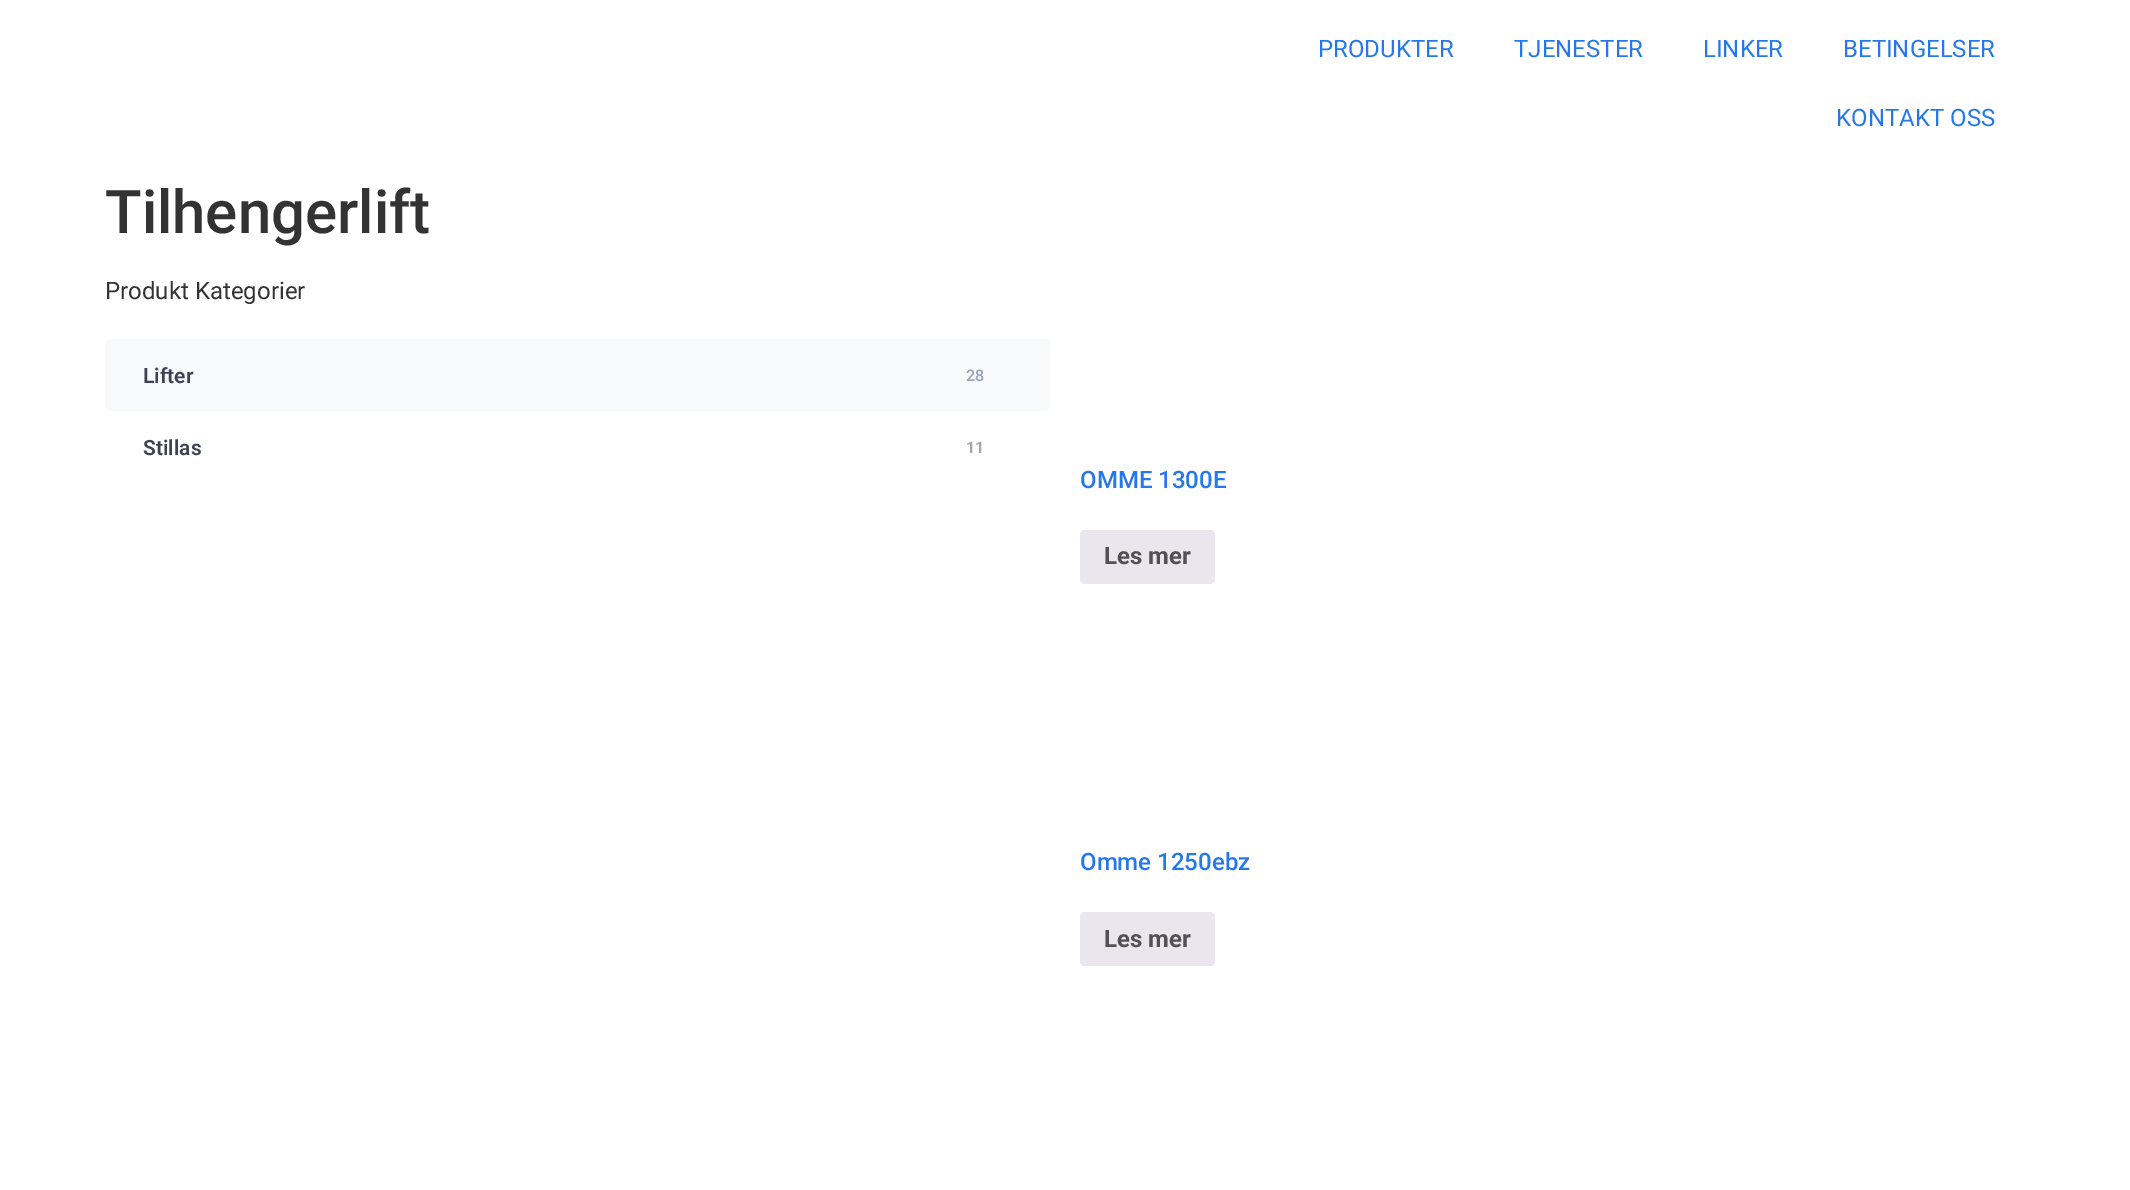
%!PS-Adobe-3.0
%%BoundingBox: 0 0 2130 1190
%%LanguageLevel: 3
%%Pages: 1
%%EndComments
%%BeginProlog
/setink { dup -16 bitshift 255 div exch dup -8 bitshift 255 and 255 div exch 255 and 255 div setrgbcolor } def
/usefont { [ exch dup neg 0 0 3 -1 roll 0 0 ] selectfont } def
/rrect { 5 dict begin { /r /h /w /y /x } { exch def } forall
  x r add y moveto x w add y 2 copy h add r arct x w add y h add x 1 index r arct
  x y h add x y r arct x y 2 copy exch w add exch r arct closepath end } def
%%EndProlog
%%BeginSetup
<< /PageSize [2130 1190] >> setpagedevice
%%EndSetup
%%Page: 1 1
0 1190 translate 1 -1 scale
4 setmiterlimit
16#FFFFFF setink
0 0 2130 1190 rectfill
/Roboto-Regular 24 usefont
16#2578E9 setink
[
    [(PRODUKTER) 1318 57]
    [(TJENESTER) 1514 57]
    [(LINKER) 1703 57]
    [(BETINGELSER) 1843 57]
    [(KONTAKT OSS) 1836 126]
] { aload pop moveto show } forall
/Roboto-Medium 60 usefont
16#333333 setink
105 233 moveto (Tilhengerlift) show
/Roboto-Regular 24 usefont
105 299 moveto (Produkt Kategorier) show
16#F7F9FB setink
105 339 945 72 6 rrect fill
/Roboto-SemiBold 21 usefont
16#3F4254 setink
143 383 moveto (Lifter) show
/Roboto-SemiBold 16 usefont
16#A1A5B7 setink
966 381 moveto (28) show
/Roboto-SemiBold 21 usefont
16#3F4254 setink
143 455 moveto (Stillas) show
/Roboto-SemiBold 16 usefont
16#A1A5B7 setink
966 453 moveto (11) show
/Roboto-Medium 24 usefont
16#2578E9 setink
1080 488 moveto (OMME 1300E) show
16#E9E6ED setink
1080 530 135 54 5 rrect fill
/Roboto-Bold 24 usefont
16#515151 setink
1104 564 moveto (Les mer) show
/Roboto-Medium 24 usefont
16#2578E9 setink
1080 870 moveto (Omme 1250ebz) show
16#E9E6ED setink
1080 912 135 54 5 rrect fill
/Roboto-Bold 24 usefont
16#515151 setink
1104 947 moveto (Les mer) show
showpage
%%EOF
